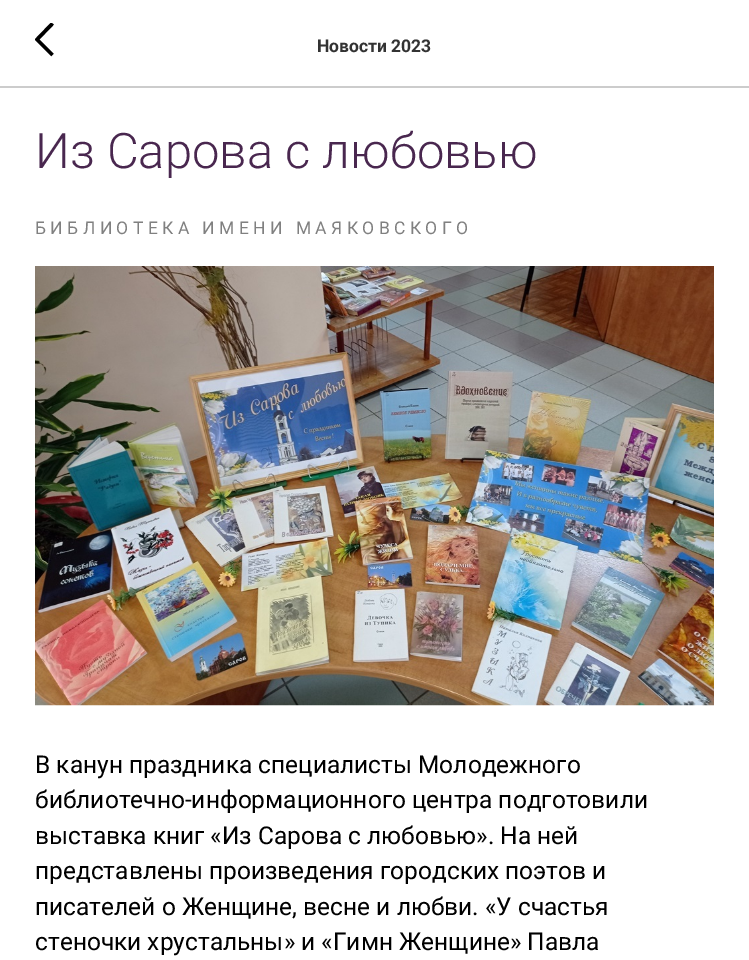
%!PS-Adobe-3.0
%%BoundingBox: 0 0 749 960
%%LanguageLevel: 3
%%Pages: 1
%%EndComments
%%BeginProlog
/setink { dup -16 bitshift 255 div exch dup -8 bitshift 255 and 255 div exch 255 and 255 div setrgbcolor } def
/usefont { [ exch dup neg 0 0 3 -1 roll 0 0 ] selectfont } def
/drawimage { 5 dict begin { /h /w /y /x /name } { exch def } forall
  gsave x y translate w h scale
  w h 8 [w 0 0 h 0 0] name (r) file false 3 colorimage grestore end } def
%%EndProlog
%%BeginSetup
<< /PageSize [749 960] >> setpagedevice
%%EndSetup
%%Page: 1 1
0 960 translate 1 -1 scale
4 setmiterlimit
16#FFFFFF setink
0 0 749 960 rectfill
16#CCCCCC setink
0 86 749 2 rectfill
gsave
35 23 19 35 rectclip
16#000000 setink
3.5 setlinewidth
52.5 55 moveto 37 39.5 lineto 52.5 23.5 lineto stroke
grestore
/Roboto-Bold 17.5 usefont
16#333333 setink
317 52 moveto (Новости 2023) show
/Roboto-Light 49 usefont
16#49274F setink
35 168 moveto (Из Сарова с любовью) show
/Roboto-Regular 17.5 usefont
16#808080 setink
35 234 moveto 4.4 0 (БИБЛИОТЕКА ИМЕНИ МАЯКОВСКОГО) ashow
(img1.raw) 35 266 679 440 drawimage
/Roboto-Regular 24.5 usefont
16#000000 setink
[
    [(В канун праздника специалисты Молодежного) 35 773]
    [(библиотечно-информационного центра подготовили) 35 808]
    [(выставка книг «Из Сарова с любовью». На ней) 35 844]
    [(представлены произведения городских поэтов и) 35 879]
    [(писателей о Женщине, весне и любви. «У счастья) 35 915]
    [(стеночки хрустальны» и «Гимн Женщине» Павла) 35 950]
] { aload pop moveto show } forall
showpage
%%EOF
